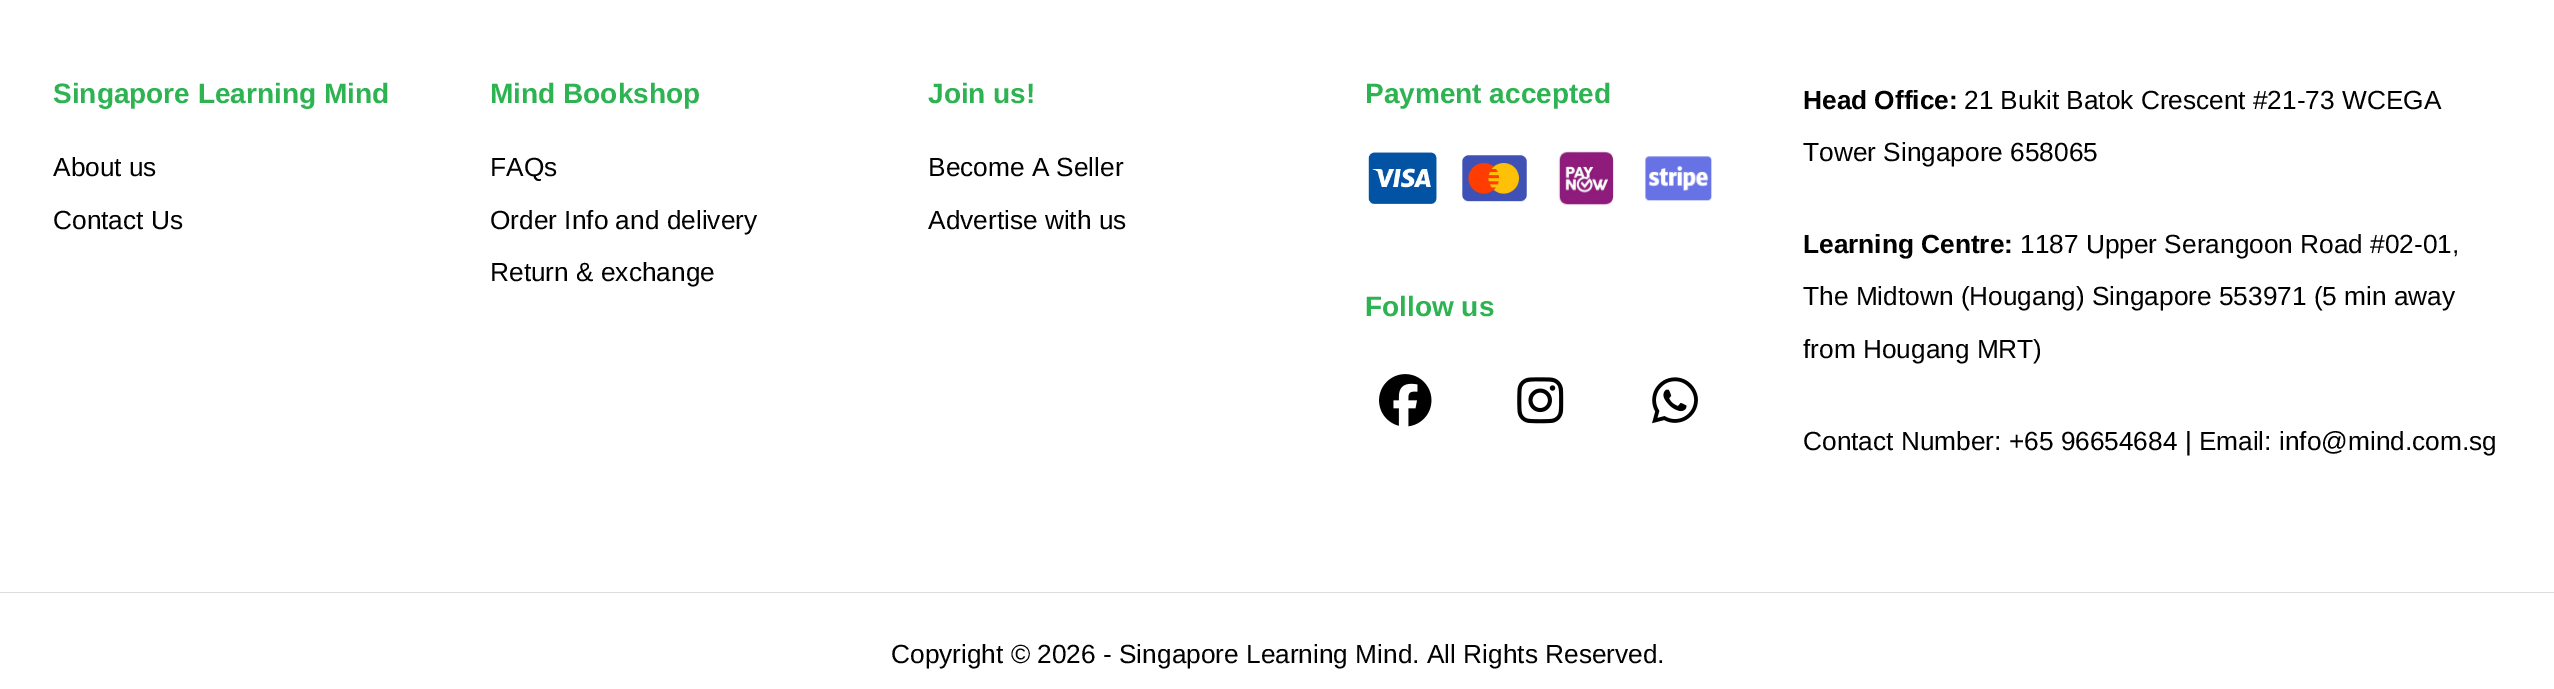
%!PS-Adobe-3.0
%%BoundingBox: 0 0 2554 689
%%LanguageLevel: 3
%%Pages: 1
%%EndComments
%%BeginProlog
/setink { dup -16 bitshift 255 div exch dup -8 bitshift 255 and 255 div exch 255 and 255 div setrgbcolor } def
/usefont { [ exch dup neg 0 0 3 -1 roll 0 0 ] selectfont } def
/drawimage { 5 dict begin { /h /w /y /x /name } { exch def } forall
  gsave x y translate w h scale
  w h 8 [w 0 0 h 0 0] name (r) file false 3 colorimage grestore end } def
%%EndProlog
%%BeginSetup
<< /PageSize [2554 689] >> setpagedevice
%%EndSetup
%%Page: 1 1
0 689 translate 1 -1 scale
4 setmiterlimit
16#FFFFFF setink
0 0 2554 689 rectfill
16#DDDDDD setink
0 592 2554 1 rectfill
/LiberationSans-Bold 28 usefont
16#2DB351 setink
53 103 moveto (Singapore Learning Mind) show
/LiberationSans-Regular 26.25 usefont
16#000000 setink
53 176 moveto (About us) show
53 229 moveto (Contact Us) show
/LiberationSans-Bold 28 usefont
16#2DB351 setink
490 103 moveto (Mind Bookshop) show
/LiberationSans-Regular 26.25 usefont
16#000000 setink
[
    [(FAQs) 490 176]
    [(Order Info and delivery) 490 229]
    [(Return & exchange) 490 281]
] { aload pop moveto show } forall
/LiberationSans-Bold 28 usefont
16#2DB351 setink
928 103 moveto (Join us!) show
/LiberationSans-Regular 26.25 usefont
16#000000 setink
928 176 moveto (Become A Seller) show
928 229 moveto (Advertise with us) show
/LiberationSans-Bold 28 usefont
16#2DB351 setink
1365 103 moveto (Payment accepted) show
(img1.raw) 1368 152 69 52 drawimage
(img2.raw) 1462 155 65 47 drawimage
(img3.raw) 1558 150 56 56 drawimage
(img4.raw) 1645 156 67 45 drawimage
1365 316 moveto (Follow us) show
(img5.raw) 1379 374 53 53 drawimage
(img6.raw) 1517 377 47 47 drawimage
(img7.raw) 1652 377 46 47 drawimage
/LiberationSans-Bold 26.25 usefont
16#000000 setink
1803 109 moveto (Head Office:) show
/LiberationSans-Regular 26.25 usefont
1964 109 moveto (21 Bukit Batok Crescent #21-73 WCEGA) show
1803 161 moveto (Tower Singapore 658065) show
/LiberationSans-Bold 26.25 usefont
1803 253 moveto (Learning Centre:) show
/LiberationSans-Regular 26.25 usefont
[
    [(1187 Upper Serangoon Road #02-01,) 2020 253]
    [(The Midtown \(Hougang\) Singapore 553971 \(5 min away) 1803 305]
    [(from Hougang MRT\)) 1803 358]
    [(Contact Number: +65 96654684 | Email: info@mind.com.sg) 1803 450]
    [(Copyright © 2026 - Singapore Learning Mind. All Rights Reserved.) 891 663]
] { aload pop moveto show } forall
showpage
%%EOF
